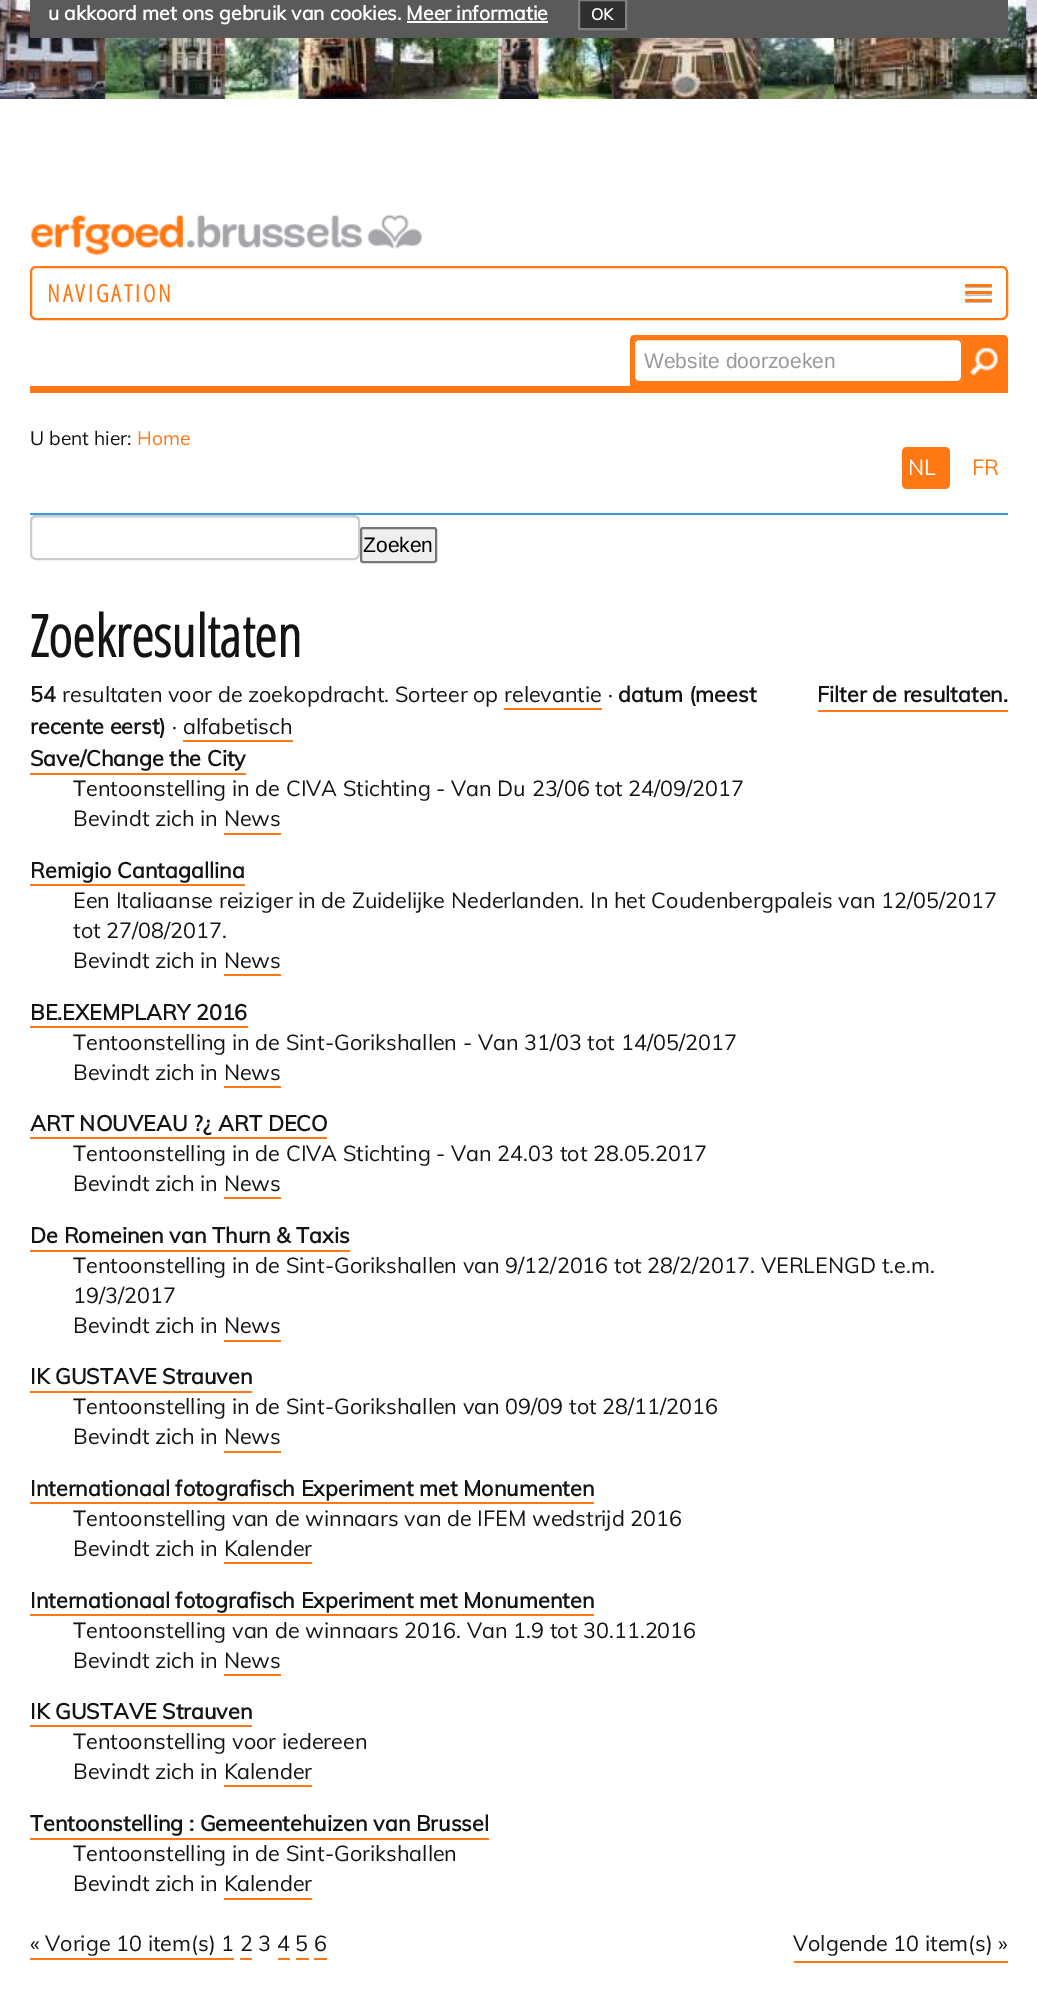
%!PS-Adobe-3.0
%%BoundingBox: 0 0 1037 2002
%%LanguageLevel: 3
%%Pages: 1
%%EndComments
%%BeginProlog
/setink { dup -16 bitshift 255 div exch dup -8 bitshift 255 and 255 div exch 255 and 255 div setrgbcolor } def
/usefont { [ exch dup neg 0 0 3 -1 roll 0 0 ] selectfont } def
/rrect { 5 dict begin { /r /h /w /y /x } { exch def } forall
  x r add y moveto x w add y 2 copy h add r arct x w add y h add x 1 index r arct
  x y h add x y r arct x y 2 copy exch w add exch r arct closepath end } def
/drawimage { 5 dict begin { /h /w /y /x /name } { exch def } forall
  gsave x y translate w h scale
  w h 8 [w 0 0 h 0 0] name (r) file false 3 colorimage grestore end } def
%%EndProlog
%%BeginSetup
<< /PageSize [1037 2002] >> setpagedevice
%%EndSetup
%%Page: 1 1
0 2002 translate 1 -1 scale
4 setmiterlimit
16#FFFFFF setink
0 0 1037 2002 rectfill
(img1.raw) 0 0 1037 99 drawimage
16#5A5A5A setink
30 0 978 38 rectfill
/Muli-Bold 19.5 usefont
16#FFFFFF setink
48 20 moveto (u akkoord met ons gebruik van cookies. Meer informatie) show
16#303030 setink
579 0 moveto 626 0 lineto 626 29 lineto 579 29 lineto closepath gsave fill grestore
16#808080 setink
2 setlinewidth
stroke
/Muli-Bold 16 usefont
16#FFFFFF setink
591 20 moveto (OK) show
407 21 141 2 rectfill
(img2.raw) 31 214 391 41 drawimage
16#FF7814 setink
31 267 976 52 5 rrect stroke
/OpenSansCondensed-Bold 24 usefont
47 302 moveto 3 0 (NAVIGATION) ashow
16#BFBFBF setink
965 286 moveto 964.5 289 970 288 970.5 288 curveto 990.5 288 lineto 992 288 992.5 286 991.5 285.5 curveto 990.5 286.5 lineto 989 287 965.5 286.5 965 286 curveto closepath fill
16#FF7814 setink
965 284 27 3 1.5 rrect fill
16#BFBFBF setink
965 294 moveto 963.5 297 970.5 296 970.5 296 curveto 991 296 lineto 992 295.5 992.5 294 991.5 293 curveto 990 294 lineto 988 294.5 966 294.5 965 294 curveto closepath fill
16#FF7814 setink
965 291 27 3 1.5 rrect fill
16#BFBFBF setink
965 301 moveto 964.5 304 970 303 970.5 303 curveto 990.5 303 lineto 992 303 992.5 301 991.5 300.5 curveto 990.5 301.5 lineto 989 302 965.5 301.5 965 301 curveto closepath fill
16#FF7814 setink
965 299 27 3 1.5 rrect fill
635 335 moveto 1003 335 lineto 1006 335 1008 337 1008 340 curveto 1008 386 lineto 630 386 lineto 630 340 lineto 630 337 632 335 635 335 curveto closepath fill
16#FFFFFF setink
633 338 330 45 6 rrect fill
16#ECECEC setink
639 340 moveto 957 340 lineto 959 340 962 343 962 345 curveto 962 344 lineto 962 341 960 339 957 339 curveto 640 339 lineto 638 339 636 340 635 342 curveto 636 341 638 340 639 340 curveto closepath fill
16#FF7814 setink
634 339 328 43 5 rrect stroke
/LiberationSans-Regular 21 usefont
16#999999 setink
644 368 moveto (Website doorzoeken) show
(img3.raw) 970 347 28 29 drawimage
16#FF7814 setink
30 386 978 7 rectfill
/Muli-Regular 19.25 usefont
16#141414 setink
30 445 moveto (U bent hier:) show
16#FF7814 setink
137 445 moveto (Home) show
902 447 48 42 5 rrect fill
/Muli-Regular 21.6 usefont
16#FFFFFF setink
908 475 moveto (NL) show
16#FF7814 setink
972 475 moveto (FR) show
16#329FD7 setink
30 513 978 2 rectfill
16#ECECEC setink
36 518 moveto 354 518 lineto 356 518 358 520 358 522 curveto 358 556 lineto 359 555 359 554 359 553 curveto 359 521 lineto 359 518 357 516 354 516 curveto 37 516 lineto 34 516 32 518 32 521 curveto 32 522 lineto 32 520 34 518 36 518 curveto closepath fill
16#CCCCCC setink
31 516 328 43 5 rrect stroke
16#EFEFEF setink
361 528 75 34 2 rrect gsave fill grestore
16#767676 setink
stroke
/LiberationSans-Regular 21 usefont
16#000000 setink
363 552 moveto (Zoeken) show
/OpenSansCondensed-Bold 57.75 usefont
16#141414 setink
30 657 moveto (Zoekresultaten) show
/Muli-Bold 21.6 usefont
30 702 moveto (54) show
/Muli-Regular 21.6 usefont
62 702 moveto (resultaten voor de zoekopdracht. Sorteer op relevantie ·) show
/Muli-Bold 21.6 usefont
618 702 moveto (datum \(meest) show
16#FF7814 setink
504 708 98 2 rectfill
818 710 190 2 rectfill
16#141414 setink
817 702 moveto (Filter de resultaten.) show
30 734 moveto (recente eerst\)) show
/Muli-Regular 21.6 usefont
172 734 moveto (· alfabetisch) show
16#FF7814 setink
183 740 110 2 rectfill
/Muli-Bold 21.6 usefont
16#141414 setink
30 766 moveto (Save/Change the City) show
16#FF7814 setink
30 773 216 2 rectfill
/Muli-Regular 21.6 usefont
16#141414 setink
73 796 moveto (Tentoonstelling in de CIVA Stichting - Van Du 23/06 tot 24/09/2017) show
73 826 moveto (Bevindt zich in News) show
16#FF7814 setink
224 833 57 2 rectfill
/Muli-Bold 21.6 usefont
16#141414 setink
30 878 moveto (Remigio Cantagallina) show
16#FF7814 setink
30 884 215 2 rectfill
/Muli-Regular 21.6 usefont
16#141414 setink
[
    [(Een Italiaanse reiziger in de Zuidelijke Nederlanden. In het Coudenbergpaleis van 12/05/2017) 73 908]
    [(tot 27/08/2017.) 73 938]
    [(Bevindt zich in News) 73 968]
] { aload pop moveto show } forall
16#FF7814 setink
224 974 57 2 rectfill
/Muli-Bold 21.6 usefont
16#141414 setink
30 1020 moveto (BE.EXEMPLARY 2016) show
16#FF7814 setink
30 1026 218 2 rectfill
/Muli-Regular 21.6 usefont
16#141414 setink
73 1050 moveto (Tentoonstelling in de Sint-Gorikshallen - Van 31/03 tot 14/05/2017) show
73 1080 moveto (Bevindt zich in News) show
16#FF7814 setink
224 1086 57 2 rectfill
/Muli-Bold 21.6 usefont
16#141414 setink
30 1131 moveto (ART NOUVEAU ?¿ ART DECO) show
16#FF7814 setink
30 1137 297 2 rectfill
/Muli-Regular 21.6 usefont
16#141414 setink
73 1161 moveto (Tentoonstelling in de CIVA Stichting - Van 24.03 tot 28.05.2017) show
73 1191 moveto (Bevindt zich in News) show
16#FF7814 setink
224 1197 57 2 rectfill
/Muli-Bold 21.6 usefont
16#141414 setink
30 1243 moveto (De Romeinen van Thurn & Taxis) show
16#FF7814 setink
30 1250 320 2 rectfill
/Muli-Regular 21.6 usefont
16#141414 setink
[
    [(Tentoonstelling in de Sint-Gorikshallen van 9/12/2016 tot 28/2/2017. VERLENGD t.e.m.) 73 1273]
    [(19/3/2017) 73 1303]
    [(Bevindt zich in News) 73 1333]
] { aload pop moveto show } forall
16#FF7814 setink
224 1340 57 2 rectfill
/Muli-Bold 21.6 usefont
16#141414 setink
30 1384 moveto (IK GUSTAVE Strauven) show
16#FF7814 setink
30 1391 222 2 rectfill
/Muli-Regular 21.6 usefont
16#141414 setink
73 1414 moveto (Tentoonstelling in de Sint-Gorikshallen van 09/09 tot 28/11/2016) show
73 1444 moveto (Bevindt zich in News) show
16#FF7814 setink
224 1451 57 2 rectfill
/Muli-Bold 21.6 usefont
16#141414 setink
30 1496 moveto (Internationaal fotografisch Experiment met Monumenten) show
16#FF7814 setink
30 1502 564 2 rectfill
/Muli-Regular 21.6 usefont
16#141414 setink
73 1526 moveto (Tentoonstelling van de winnaars van de IFEM wedstrijd 2016) show
73 1556 moveto (Bevindt zich in Kalender) show
16#FF7814 setink
224 1562 88 2 rectfill
/Muli-Bold 21.6 usefont
16#141414 setink
30 1608 moveto (Internationaal fotografisch Experiment met Monumenten) show
16#FF7814 setink
30 1614 564 2 rectfill
/Muli-Regular 21.6 usefont
16#141414 setink
73 1638 moveto (Tentoonstelling van de winnaars 2016. Van 1.9 tot 30.11.2016) show
73 1668 moveto (Bevindt zich in News) show
16#FF7814 setink
224 1674 57 2 rectfill
/Muli-Bold 21.6 usefont
16#141414 setink
30 1719 moveto (IK GUSTAVE Strauven) show
16#FF7814 setink
30 1725 222 2 rectfill
/Muli-Regular 21.6 usefont
16#141414 setink
73 1749 moveto (Tentoonstelling voor iedereen) show
73 1779 moveto (Bevindt zich in Kalender) show
16#FF7814 setink
224 1785 88 2 rectfill
/Muli-Bold 21.6 usefont
16#141414 setink
30 1831 moveto (Tentoonstelling : Gemeentehuizen van Brussel) show
16#FF7814 setink
30 1838 459 2 rectfill
/Muli-Regular 21.6 usefont
16#141414 setink
73 1861 moveto (Tentoonstelling in de Sint-Gorikshallen) show
73 1891 moveto (Bevindt zich in Kalender) show
16#FF7814 setink
224 1898 88 2 rectfill
16#141414 setink
30 1951 moveto (« Vorige 10 item\(s\) 1 2 3 4 5 6) show
16#FF7814 setink
30 1958 204 2 rectfill
794 1961 214 2 rectfill
16#141414 setink
793 1951 moveto (Volgende 10 item\(s\) ») show
[
    [240 1958 12 2 16#FF7814]
    [278 1958 12 2 16#FF7814]
    [296 1958 13 2 16#FF7814]
    [314 1958 13 2 16#FF7814]
] { aload pop setink rectfill } forall
showpage
%%EOF
